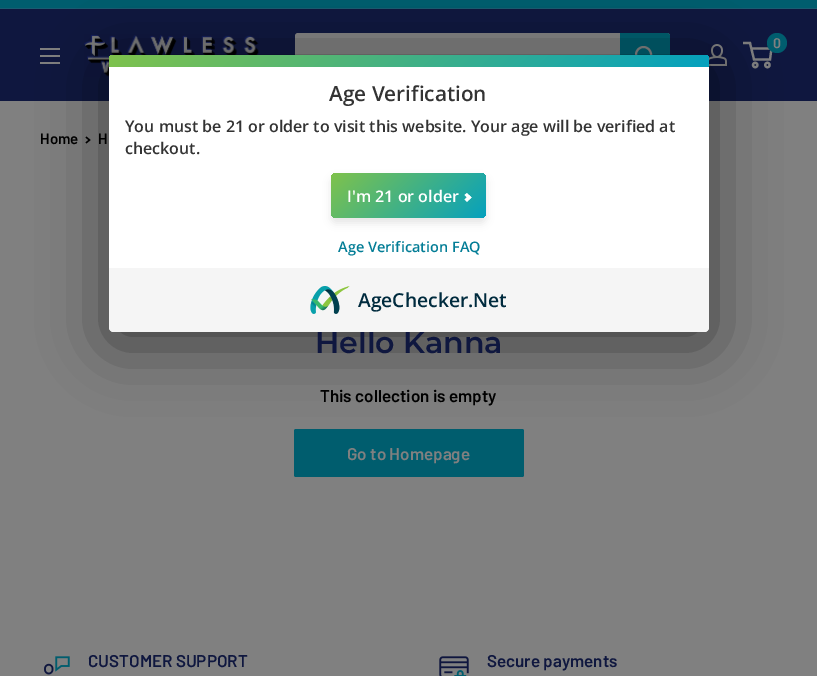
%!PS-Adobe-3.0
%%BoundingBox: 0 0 817 676
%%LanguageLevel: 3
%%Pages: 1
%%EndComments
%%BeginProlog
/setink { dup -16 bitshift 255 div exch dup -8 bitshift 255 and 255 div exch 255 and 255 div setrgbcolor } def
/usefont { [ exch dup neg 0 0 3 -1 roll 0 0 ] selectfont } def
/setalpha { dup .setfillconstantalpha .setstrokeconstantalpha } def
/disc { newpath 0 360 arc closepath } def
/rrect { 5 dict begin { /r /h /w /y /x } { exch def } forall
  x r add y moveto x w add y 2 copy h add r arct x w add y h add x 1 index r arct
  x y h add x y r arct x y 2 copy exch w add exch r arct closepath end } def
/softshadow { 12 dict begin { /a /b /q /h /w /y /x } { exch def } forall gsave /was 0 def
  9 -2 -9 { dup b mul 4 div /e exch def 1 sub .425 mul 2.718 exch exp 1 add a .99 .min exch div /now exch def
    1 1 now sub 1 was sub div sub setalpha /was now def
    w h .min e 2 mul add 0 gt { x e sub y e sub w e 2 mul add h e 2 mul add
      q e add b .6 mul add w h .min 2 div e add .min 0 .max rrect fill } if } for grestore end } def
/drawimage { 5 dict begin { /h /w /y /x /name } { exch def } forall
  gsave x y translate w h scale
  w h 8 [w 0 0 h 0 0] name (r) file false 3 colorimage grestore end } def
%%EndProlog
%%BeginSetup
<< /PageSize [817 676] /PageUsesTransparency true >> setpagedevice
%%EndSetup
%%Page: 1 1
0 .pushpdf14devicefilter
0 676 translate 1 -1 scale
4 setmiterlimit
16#808080 setink
0 0 817 676 rectfill
[
    [0 0 817 8 16#005D6E]
    [0 8 817 1 16#195C71]
    [0 9 817 92 16#0F173F]
] { aload pop setink rectfill } forall
(img1.raw) 84 34 175 43 drawimage
16#808080 setink
295 33 375 44 3 rrect fill
16#005D6E setink
620 33 moveto 667 33 lineto 668.5 33 670 34.5 670 36 curveto 670 74 lineto 670 75.5 668.5 77 667 77 curveto 620 77 lineto closepath fill
16#808080 setink
2 setlinewidth
643.5 54.5 7.5 disc stroke
(img2.raw) 708 44 19 22 drawimage
2.2 setlinewidth
755.2 65 2.2 disc stroke
767.4 65 2.2 disc stroke
751 48.5 moveto 771.5 48.5 lineto 770 59.5 lineto 754 59.5 lineto 750 43 lineto 743 43 lineto stroke
16#005D6E setink
777 43 10 disc fill
/Barlow-SemiBold 14 usefont
16#808080 setink
773 48 moveto (0) show
(img3.raw) 40 48 20 16 drawimage
16#000000 setink
1.3 setlinewidth
2 setlinecap
86.5 137.5 moveto 89.5 140 lineto 86.5 142.5 lineto stroke
16#005D6E setink
294 429 230 48 2 rrect fill
16#000000 setink
106 62 606 283 8 32 0.5 softshadow
/Montserrat-SemiBold 30 usefont
16#0F173F setink
315 353 moveto (Hello Kanna) show
16#FFFFFF setink
109 55 600 277 5 rrect fill
gsave 114 55 moveto 704 55 lineto 707 55 709 57 709 60 curveto 709 67 lineto 109 67 lineto 109 60 lineto 109 57 111 55 114 55 curveto closepath clip newpath
<< /ShadingType 2 /ColorSpace /DeviceRGB /Coords [256 -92 562 214] /Extend [true true] /Function << /FunctionType 2 /Domain [0 1] /C0 [0.498 0.761 0.298] /C1 [0.016 0.631 0.749] /N 1 >> >> shfill grestore
/OpenSans-SemiBold 20.75 usefont
16#333333 setink
329 101 moveto (Age Verification) show
/OpenSans-SemiBold 16 usefont
125 132 moveto (You must be 21 or older to visit this website. Your age will be verified at) show
125 154 moveto (checkout.) show
16#000000 setink
331 178 155 45 5 4 0.1 softshadow
gsave 331 173 155 45 5 rrect clip newpath
<< /ShadingType 2 /ColorSpace /DeviceRGB /Coords [359 146 459 246] /Extend [true true] /Function << /FunctionType 2 /Domain [0 1] /C0 [0.498 0.761 0.298] /C1 [0.016 0.631 0.749] /N 1 >> >> shfill grestore
16#FFFFFF setink
347 202 moveto (I'm 21 or older) show
464.5 195 moveto 467 193 lineto 471.5 197.5 lineto 469 199.5 lineto closepath fill
464.5 199.5 moveto 469 195 lineto 471.5 197.5 lineto 467 202 lineto closepath fill
/OpenSans-SemiBold 14.5 usefont
16#037D96 setink
338 252 moveto (Age Verification FAQ) show
16#F5F5F5 setink
109 268 moveto 709 268 lineto 709 327 lineto 709 330 707 332 704 332 curveto 114 332 lineto 111 332 109 330 109 327 curveto closepath fill
(img4.raw) 310 286 40 28 drawimage
/OpenSans-SemiBold 19.25 usefont
16#002B3E setink
358 307 moveto (AgeChecker.Net) show
/Barlow-SemiBold 15 usefont
16#000000 setink
40 144 moveto (Home) show
98 144 moveto (H) show
/Barlow-SemiBold 17 usefont
320 402 moveto (This collection is empty) show
16#808080 setink
347 460 moveto (Go to Homepage) show
(img5.raw) 44 656 26 19 drawimage
16#0F173F setink
88 667 moveto (CUSTOMER SUPPORT) show
(img6.raw) 439 656 30 20 drawimage
487 667 moveto (Secure payments) show
.poppdf14devicefilter showpage
%%EOF
